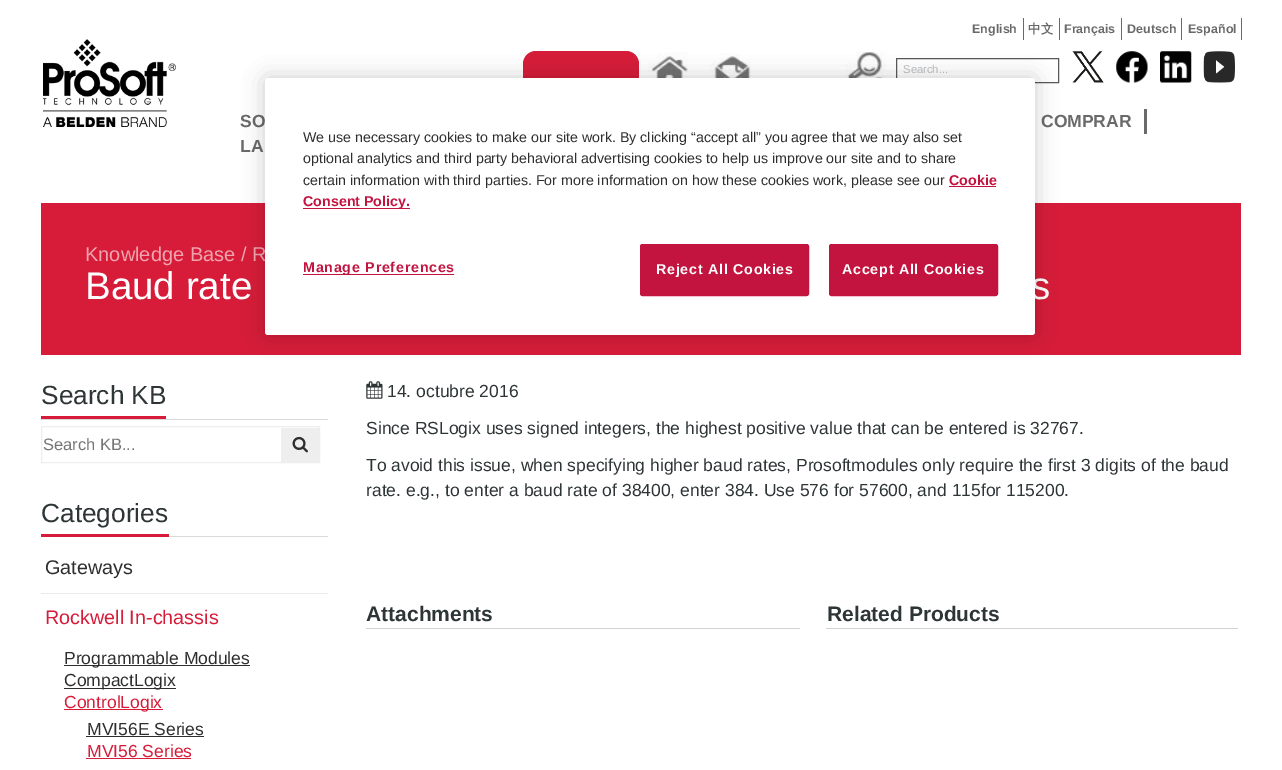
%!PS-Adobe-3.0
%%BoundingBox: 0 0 1282 770
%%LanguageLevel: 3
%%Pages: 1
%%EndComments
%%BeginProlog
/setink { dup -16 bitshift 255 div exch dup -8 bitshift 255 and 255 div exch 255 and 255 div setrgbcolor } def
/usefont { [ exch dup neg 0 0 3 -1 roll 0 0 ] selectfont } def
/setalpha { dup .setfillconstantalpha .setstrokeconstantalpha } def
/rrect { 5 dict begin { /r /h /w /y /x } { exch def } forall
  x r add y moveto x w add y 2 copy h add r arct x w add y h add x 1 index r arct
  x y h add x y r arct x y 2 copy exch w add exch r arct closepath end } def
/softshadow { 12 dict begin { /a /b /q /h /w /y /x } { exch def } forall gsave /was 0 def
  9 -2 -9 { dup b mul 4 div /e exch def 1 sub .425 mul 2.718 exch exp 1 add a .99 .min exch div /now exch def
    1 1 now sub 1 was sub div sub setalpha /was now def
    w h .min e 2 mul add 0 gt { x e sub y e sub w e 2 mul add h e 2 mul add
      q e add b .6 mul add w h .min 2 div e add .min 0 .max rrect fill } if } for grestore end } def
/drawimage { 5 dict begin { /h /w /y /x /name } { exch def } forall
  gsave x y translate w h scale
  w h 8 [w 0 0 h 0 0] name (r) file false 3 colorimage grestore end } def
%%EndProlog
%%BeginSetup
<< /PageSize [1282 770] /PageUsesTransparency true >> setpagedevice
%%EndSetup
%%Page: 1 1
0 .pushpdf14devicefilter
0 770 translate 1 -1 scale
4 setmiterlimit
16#FFFFFF setink
0 0 1282 770 rectfill
16#6A6A6C setink
1023 18 1 22 rectfill
/LiberationSans-Bold 12.5 usefont
972 33 moveto (English) show
1059 18 1 22 rectfill
/WenQuanYiZenHei-Bold 12.5 usefont
1028 33 moveto (中文) show
1121 18 1 22 rectfill
/LiberationSans-Bold 12.5 usefont
1064 33 moveto (Français) show
1181 18 1 22 rectfill
1127 33 moveto (Deutsch) show
1241 18 1 22 rectfill
1188 33 moveto (Español) show
(img1.raw) 43 39 133 88 drawimage
16#D61C38 setink
523 51 116 52 13 rrect fill
(img2.raw) 648 52 40 26 drawimage
(img3.raw) 710 53 41 25 drawimage
(img4.raw) 846 51 46 27 drawimage
16#58595B setink
896.5 58.5 162 24 rectstroke
/LiberationSans-Regular 11.25 usefont
16#BCBEC0 setink
903 73 moveto (Search...) show
(img5.raw) 1072 51 32 32 drawimage
(img6.raw) 1116 51 32 32 drawimage
(img7.raw) 1160 51 32 32 drawimage
(img8.raw) 1203 51 32 32 drawimage
/LiberationSans-Bold 17.5 usefont
16#6A6A6C setink
240 127 moveto (SO) show
1144 109 3 25 rectfill
1041 127 moveto (COMPRAR) show
240 152 moveto (LA) show
16#D61C38 setink
41 203 1200 152 rectfill
/LiberationSans-Regular 20 usefont
16#EFA4AF setink
85 261 moveto (Knowledge Base / R) show
/LiberationSans-Regular 38.5 usefont
16#FFFFFF setink
85 299 moveto (Baud rate) show
1031 299 moveto (s) show
16#DADADA setink
41 419 287 1 rectfill
16#D61C38 setink
41 416 125 3 rectfill
/LiberationSans-Regular 26.25 usefont
16#2D3536 setink
41 404 moveto (Search KB) show
16#EEEEEE setink
41.5 426.5 278 36 rectstroke
/LiberationSans-Regular 16.5 usefont
16#757575 setink
43 450 moveto (Search KB...) show
16#EEEEEE setink
281 428 38 34 rectfill
(img9.raw) 292 436 16 17 drawimage
16#DADADA setink
169 536 159 1 rectfill
16#D61C38 setink
41 534 128 3 rectfill
/LiberationSans-Regular 26.25 usefont
16#2D3536 setink
41 522 moveto (Categories) show
16#EBEBEB setink
41 593 287 1 rectfill
/LiberationSans-Regular 19.75 usefont
16#2E2E2E setink
45 574 moveto (Gateways) show
16#D61C38 setink
45 624 moveto (Rockwell In-chassis) show
16#2E2E2E setink
64 665 186 1 rectfill
/LiberationSans-Regular 17.5 usefont
64 664 moveto (Programmable Modules) show
64 688 112 1 rectfill
64 686 moveto (CompactLogix) show
16#D61C38 setink
64 709 99 1 rectfill
64 708 moveto (ControlLogix) show
16#2E2E2E setink
87 735 moveto (MVI56E Series) show
86 736 118 1 rectfill
16#D61C38 setink
87 757 moveto (MVI56 Series) show
86 758 105 1 rectfill
(img10.raw) 366 381 17 18 drawimage
16#2D3536 setink
[
    [(14. octubre 2016) 387 397]
    [(Since RSLogix uses signed integers, the highest positive value that can be entered is 32767.) 366 434]
    [(To avoid this issue, when specifying higher baud rates, Prosoftmodules only require the first 3 digits of the baud) 366 471]
    [(rate. e.g., to enter a baud rate of 38400, enter 384. Use 576 for 57600, and 115for 115200.) 366 496]
] { aload pop moveto show } forall
16#D3D3D3 setink
366 628 434 1 rectfill
/LiberationSans-Bold 21 usefont
16#2D3536 setink
366 621 moveto (Attachments) show
16#D3D3D3 setink
826 628 412 1 rectfill
16#2D3536 setink
827 621 moveto (Related Products) show
16#000000 setink
265 78 770 257 3 11 0.2 softshadow
16#FFFFFF setink
265 78 770 257 3 rrect fill
/LiberationSans-Regular 14.25 usefont
16#2E2E2E setink
[
    [(We use necessary cookies to make our site work. By clicking “accept all” you agree that we may also set) 303 142]
    [(optional analytics and third party behavioral advertising cookies to help us improve our site and to share) 303 163]
    [(certain information with third parties. For more information on how these cookies work, please see our) 303 185]
] { aload pop moveto show } forall
/LiberationSans-Bold 14.25 usefont
16#C2143F setink
949 185 moveto (Cookie) show
949 186 47 1 rectfill
303 208 107 1 rectfill
303 206 moveto (Consent Policy.) show
303 274 151 1 rectfill
303 272 moveto 0.75 0 (Manage Preferences) ashow
640.5 244.5 168 51 2 rrect gsave fill grestore
stroke
16#FFFFFF setink
656 274 moveto 0.75 0 (Reject All Cookies) ashow
16#C2143F setink
829.5 244.5 168 51 2 rrect gsave fill grestore
stroke
16#FFFFFF setink
842 274 moveto 0.75 0 (Accept All Cookies) ashow
.poppdf14devicefilter showpage
%%EOF
